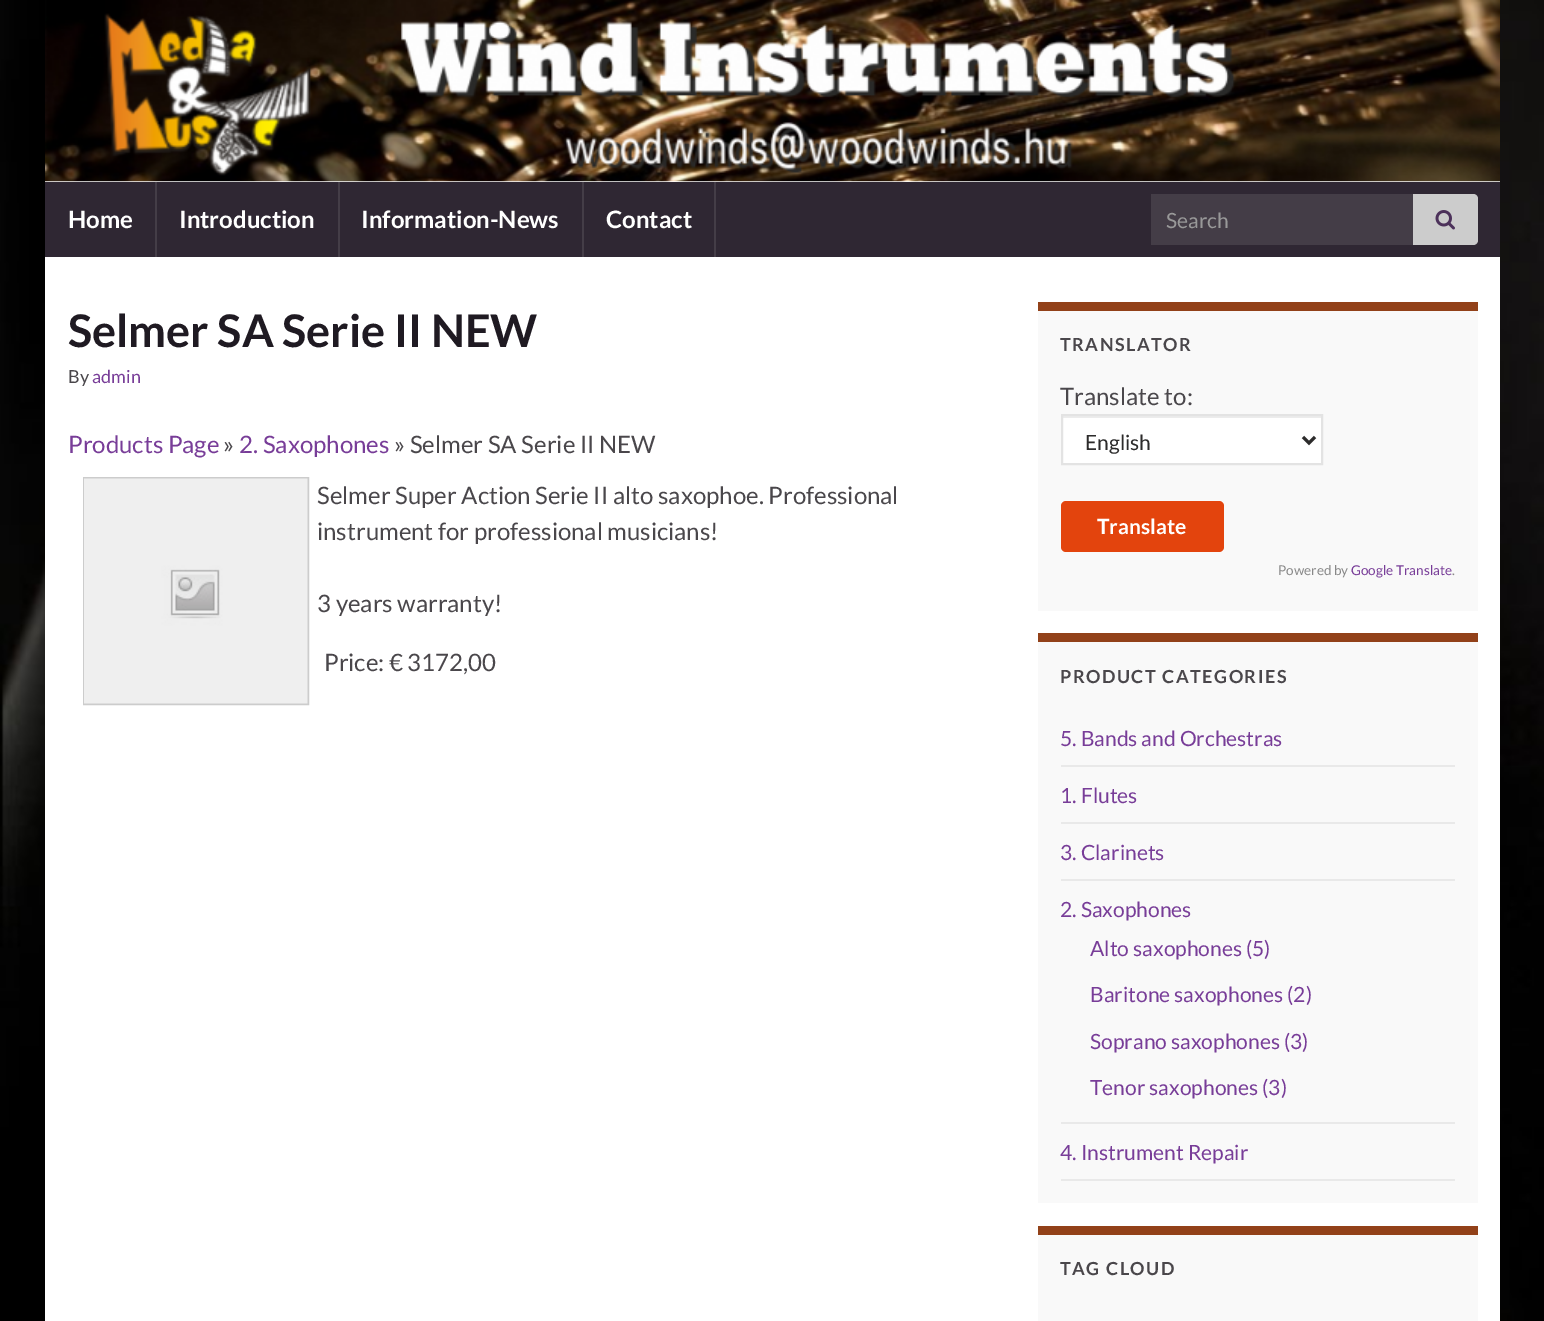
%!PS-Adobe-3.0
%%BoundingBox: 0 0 1544 1321
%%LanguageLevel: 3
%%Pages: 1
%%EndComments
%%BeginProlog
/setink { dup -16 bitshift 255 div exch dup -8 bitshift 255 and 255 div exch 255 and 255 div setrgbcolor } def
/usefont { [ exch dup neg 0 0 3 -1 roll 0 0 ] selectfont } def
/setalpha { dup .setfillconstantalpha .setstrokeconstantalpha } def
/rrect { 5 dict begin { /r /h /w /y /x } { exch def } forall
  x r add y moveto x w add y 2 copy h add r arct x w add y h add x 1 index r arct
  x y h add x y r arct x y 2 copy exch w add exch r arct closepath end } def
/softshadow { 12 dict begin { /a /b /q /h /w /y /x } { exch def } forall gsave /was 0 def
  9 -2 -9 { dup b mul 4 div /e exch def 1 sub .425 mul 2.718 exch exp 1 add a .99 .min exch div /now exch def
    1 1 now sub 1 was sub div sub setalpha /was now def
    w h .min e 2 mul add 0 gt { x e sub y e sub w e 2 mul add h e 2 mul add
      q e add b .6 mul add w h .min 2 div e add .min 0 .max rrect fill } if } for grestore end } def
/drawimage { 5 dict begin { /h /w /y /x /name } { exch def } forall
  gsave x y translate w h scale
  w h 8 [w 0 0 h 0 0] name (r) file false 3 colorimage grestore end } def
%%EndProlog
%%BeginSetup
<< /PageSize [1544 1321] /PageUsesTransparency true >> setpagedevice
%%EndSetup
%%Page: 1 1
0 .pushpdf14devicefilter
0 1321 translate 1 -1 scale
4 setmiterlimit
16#FFFFFF setink
0 0 1544 1321 rectfill
(img1.raw) 0 0 1544 1321 drawimage
16#000000 setink
45 0 1455 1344 0 7.5 0.1 softshadow
16#FFFFFF setink
45 181 1455 1 rectfill
(img2.raw) 45 0 1455 182 drawimage
16#2F2733 setink
45 182 1455 75 rectfill
16#443D47 setink
155 182 2 75 rectfill
/Lato-Bold 24 usefont
16#FFFFFF setink
68 228 moveto (Home) show
16#443D47 setink
338 182 2 75 rectfill
16#FFFFFF setink
179 228 moveto (Introduction) show
16#443D47 setink
582 182 2 75 rectfill
16#FFFFFF setink
361 228 moveto (Information-News) show
16#443D47 setink
714 182 2 75 rectfill
16#FFFFFF setink
606 228 moveto (Contact) show
16#443D47 setink
1151 194 262 51 rectfill
/Lato-Regular 21 usefont
16#999999 setink
1166 228 moveto (Search) show
16#CCCCCC setink
1413 194 moveto 1473 194 lineto 1476 194 1478 196 1478 199 curveto 1478 240 lineto 1478 243 1476 245 1473 245 curveto 1413 245 lineto closepath fill
(img3.raw) 1435 210 20 20 drawimage
16#FFFFFF setink
45 257 1455 1064 rectfill
/Lato-Bold 45 usefont
16#1F1A22 setink
68 347 moveto (Selmer SA Serie II NEW) show
/Lato-Regular 18 usefont
16#4A474B setink
68 383 moveto (By) show
16#783D98 setink
92 383 moveto (admin) show
/Lato-Regular 24 usefont
68 453 moveto (Products Page) show
16#4A474B setink
223 453 moveto (») show
16#783D98 setink
239 453 moveto (2. Saxophones) show
16#4A474B setink
394 453 moveto (» Selmer SA Serie II NEW) show
16#CCCCCC setink
2 setlinewidth
84 478 224 226 rectstroke
(img4.raw) 84 478 224 226 drawimage
16#4A474B setink
[
    [(Selmer Super Action Serie II alto saxophoe. Professional) 317 504]
    [(instrument for professional musicians!) 317 540]
    [(3 years warranty!) 317 612]
    [(Price: € 3172,00) 324 671]
] { aload pop moveto show } forall
16#F9F9F9 setink
1038 311 440 300 rectfill
16#924119 setink
1038 302 440 9 rectfill
/Lato-Bold 18 usefont
16#4A474B setink
1060 351 moveto 1.5 0 (TRANSLATOR) ashow
/Lato-Regular 24 usefont
1060 405 moveto (Translate to:) show
16#FFFFFF setink
1063 418 258 45 rectfill
16#ECECEC setink
1062 416 260 2 rectfill
16#E3E3E3 setink
1062 415 260 49 rectstroke
16#2C2B2B setink
3 setlinewidth
1303 437 moveto 1309 443 lineto 1315 437 lineto stroke
/Lato-Regular 21 usefont
1085 450 moveto (English) show
16#E3440D setink
1061 501 163 51 5 rrect fill
/Lato-Bold 21 usefont
16#FFFFFF setink
1097 534 moveto (Translate) show
/Lato-Regular 13.5 usefont
16#888888 setink
1278 575 moveto (Powered by) show
16#783D98 setink
1351 575 moveto (Google Translate) show
16#888888 setink
1452 575 moveto (.) show
16#F9F9F9 setink
1038 642 440 561 rectfill
16#924119 setink
1038 633 440 9 rectfill
/Lato-Bold 18 usefont
16#4A474B setink
1060 683 moveto 1.5 0 (PRODUCT CATEGORIES) ashow
16#E9E9E9 setink
1061 765 394 2 rectfill
/Lato-Regular 21 usefont
16#783D98 setink
1060 746 moveto (5. Bands and Orchestras) show
16#E9E9E9 setink
1061 822 394 2 rectfill
16#783D98 setink
1060 803 moveto (1. Flutes) show
16#E9E9E9 setink
1061 879 394 2 rectfill
16#783D98 setink
1060 860 moveto (3. Clarinets) show
16#E9E9E9 setink
1061 1122 394 2 rectfill
16#783D98 setink
[
    [(2. Saxophones) 1060 917]
    [(Alto saxophones \(5\)) 1090 956]
    [(Baritone saxophones \(2\)) 1090 1002]
    [(Soprano saxophones \(3\)) 1090 1049]
    [(Tenor saxophones \(3\)) 1090 1095]
] { aload pop moveto show } forall
16#E9E9E9 setink
1061 1179 394 2 rectfill
16#783D98 setink
1060 1160 moveto (4. Instrument Repair) show
16#F9F9F9 setink
1038 1235 440 86 rectfill
16#924119 setink
1038 1226 440 9 rectfill
/Lato-Bold 18 usefont
16#4A474B setink
1060 1275 moveto 1.5 0 (TAG CLOUD) ashow
.poppdf14devicefilter showpage
%%EOF
